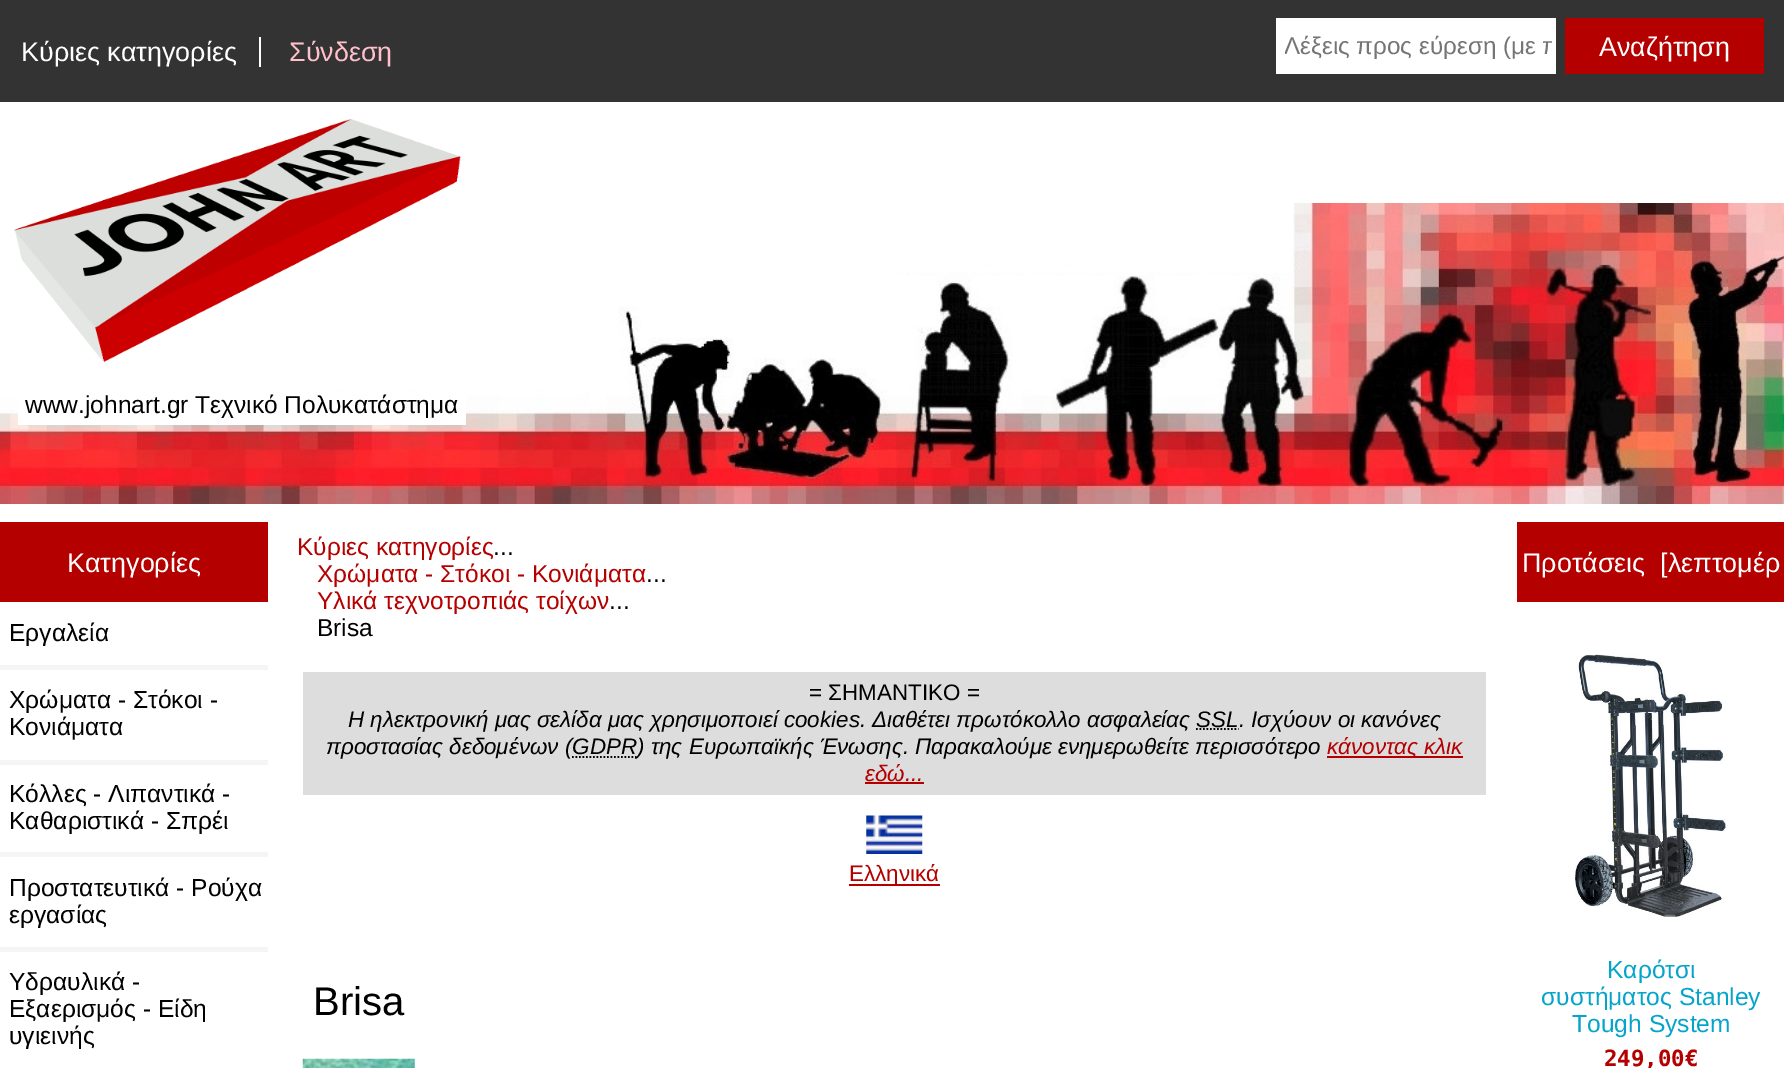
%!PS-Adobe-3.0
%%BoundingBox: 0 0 1784 1068
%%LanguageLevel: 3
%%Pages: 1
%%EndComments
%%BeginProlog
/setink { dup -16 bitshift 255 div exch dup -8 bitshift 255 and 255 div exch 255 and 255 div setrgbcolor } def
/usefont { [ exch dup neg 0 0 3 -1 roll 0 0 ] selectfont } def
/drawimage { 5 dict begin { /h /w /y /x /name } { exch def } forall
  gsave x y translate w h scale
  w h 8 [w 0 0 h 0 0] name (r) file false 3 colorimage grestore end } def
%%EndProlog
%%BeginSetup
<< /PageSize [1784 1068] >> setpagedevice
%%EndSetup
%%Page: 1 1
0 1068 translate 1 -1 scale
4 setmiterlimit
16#FFFFFF setink
0 0 1784 1068 rectfill
16#333333 setink
0 0 1784 102 rectfill
/LiberationSans-Regular 26.9 usefont
16#FFFFFF setink
21 61 moveto (Κύριες κατηγορίες) show
259 37 2 30 rectfill
16#FFC0CB setink
289 61 moveto (Σύνδεση) show
16#FFFFFF setink
1276 18 280 56 rectfill
gsave
1285 32 267 28 rectclip
/LiberationSans-Regular 24.25 usefont
16#757575 setink
1284 54 moveto (Λέξεις προς εύρεση \(με π) show
grestore
16#B50000 setink
1565 18 199 56 rectfill
16#FFFFFF setink
1599 56 moveto (Αναζήτηση) show
(img1.raw) 0 203 1784 301 drawimage
(img2.raw) 14 119 447 244 drawimage
18 396 448 29 rectfill
/LiberationSans-Regular 24.5 usefont
16#000000 setink
25 413 moveto (www.johnart.gr Τεχνικό Πολυκατάστημα) show
16#B50000 setink
0 522 268 80 rectfill
/LiberationSans-Regular 26.9 usefont
16#FFFFFF setink
67 572 moveto (Κατηγορίες) show
16#F5F5F5 setink
0 665 268 5 rectfill
/LiberationSans-Regular 24.6 usefont
16#000000 setink
9 641 moveto (Εργαλεία) show
16#F5F5F5 setink
0 760 268 5 rectfill
16#000000 setink
9 708 moveto (Χρώματα - Στόκοι -) show
9 735 moveto (Κονιάματα) show
16#F5F5F5 setink
0 852 268 5 rectfill
16#000000 setink
9 802 moveto (Κόλλες - Λιπαντικά -) show
9 829 moveto (Καθαριστικά - Σπρέι) show
16#F5F5F5 setink
0 947 268 5 rectfill
16#000000 setink
[
    [(Προστατευτικά - Ρούχα) 9 896]
    [(εργασίας) 9 923]
    [(Υδραυλικά -) 9 990]
    [(Εξαερισμός - Είδη) 9 1017]
    [(υγιεινής) 9 1044]
] { aload pop moveto show } forall
/LiberationSans-Regular 24.5 usefont
16#B50000 setink
297 555 moveto (Κύριες κατηγορίες) show
16#000000 setink
493 555 moveto (...) show
16#B50000 setink
317 582 moveto (Χρώματα - Στόκοι - Κονιάματα) show
16#000000 setink
646 582 moveto (...) show
16#B50000 setink
317 609 moveto (Υλικά τεχνοτροπιάς τοίχων) show
16#000000 setink
609 609 moveto (...) show
317 636 moveto (Brisa) show
16#DDDDDD setink
303 672 1183 123 rectfill
/LiberationSans-Regular 22.4 usefont
16#000000 setink
809 700 moveto (= ΣΗΜΑΝΤΙΚΟ =) show
/LiberationSans-Italic 22.4 usefont
348 727 moveto (Η ηλεκτρονική μας σελίδα μας χρησιμοποιεί cookies. Διαθέτει πρωτόκολλο ασφαλείας SSL. Ισχύουν οι κανόνες) show
1.8 setlinewidth
[1.75 1.75] 0 setdash
1196 729 moveto 1238.5 729 lineto stroke
326 754 moveto (προστασίας δεδομένων \(GDPR) show
572 757 moveto 636.5 757 lineto stroke
637 754 moveto (\) της Ευρωπαϊκής Ένωσης. Παρακαλούμε ενημερωθείτε περισσότερο) show
16#B50000 setink
1327 756 136 2 rectfill
1327 754 moveto (κάνοντας κλικ) show
865 781 moveto (εδώ...) show
865 782 59 2 rectfill
(img3.raw) 866 815 57 39 drawimage
849 884 91 2 rectfill
/LiberationSans-Regular 22.4 usefont
849 881 moveto (Ελληνικά) show
/LiberationSans-Regular 40 usefont
16#000000 setink
313 1015 moveto (Brisa) show
(img4.raw) 302 1058 113 10 drawimage
16#B50000 setink
1517 522 267 80 rectfill
/LiberationSans-Regular 26.9 usefont
16#FFFFFF setink
1522 572 moveto (Προτάσεις  [λεπτομέρ) show
(img5.raw) 1575 654 151 263 drawimage
/LiberationSans-Regular 24.6 usefont
16#05A5CB setink
[
    [(Καρότσι) 1607 978]
    [(συστήματος Stanley) 1541 1005]
    [(Tough System) 1572 1032]
] { aload pop moveto show } forall
/DejaVuSansMono-Bold 22.4 usefont
16#B50000 setink
1604 1066 moveto (249,00€) show
showpage
%%EOF
